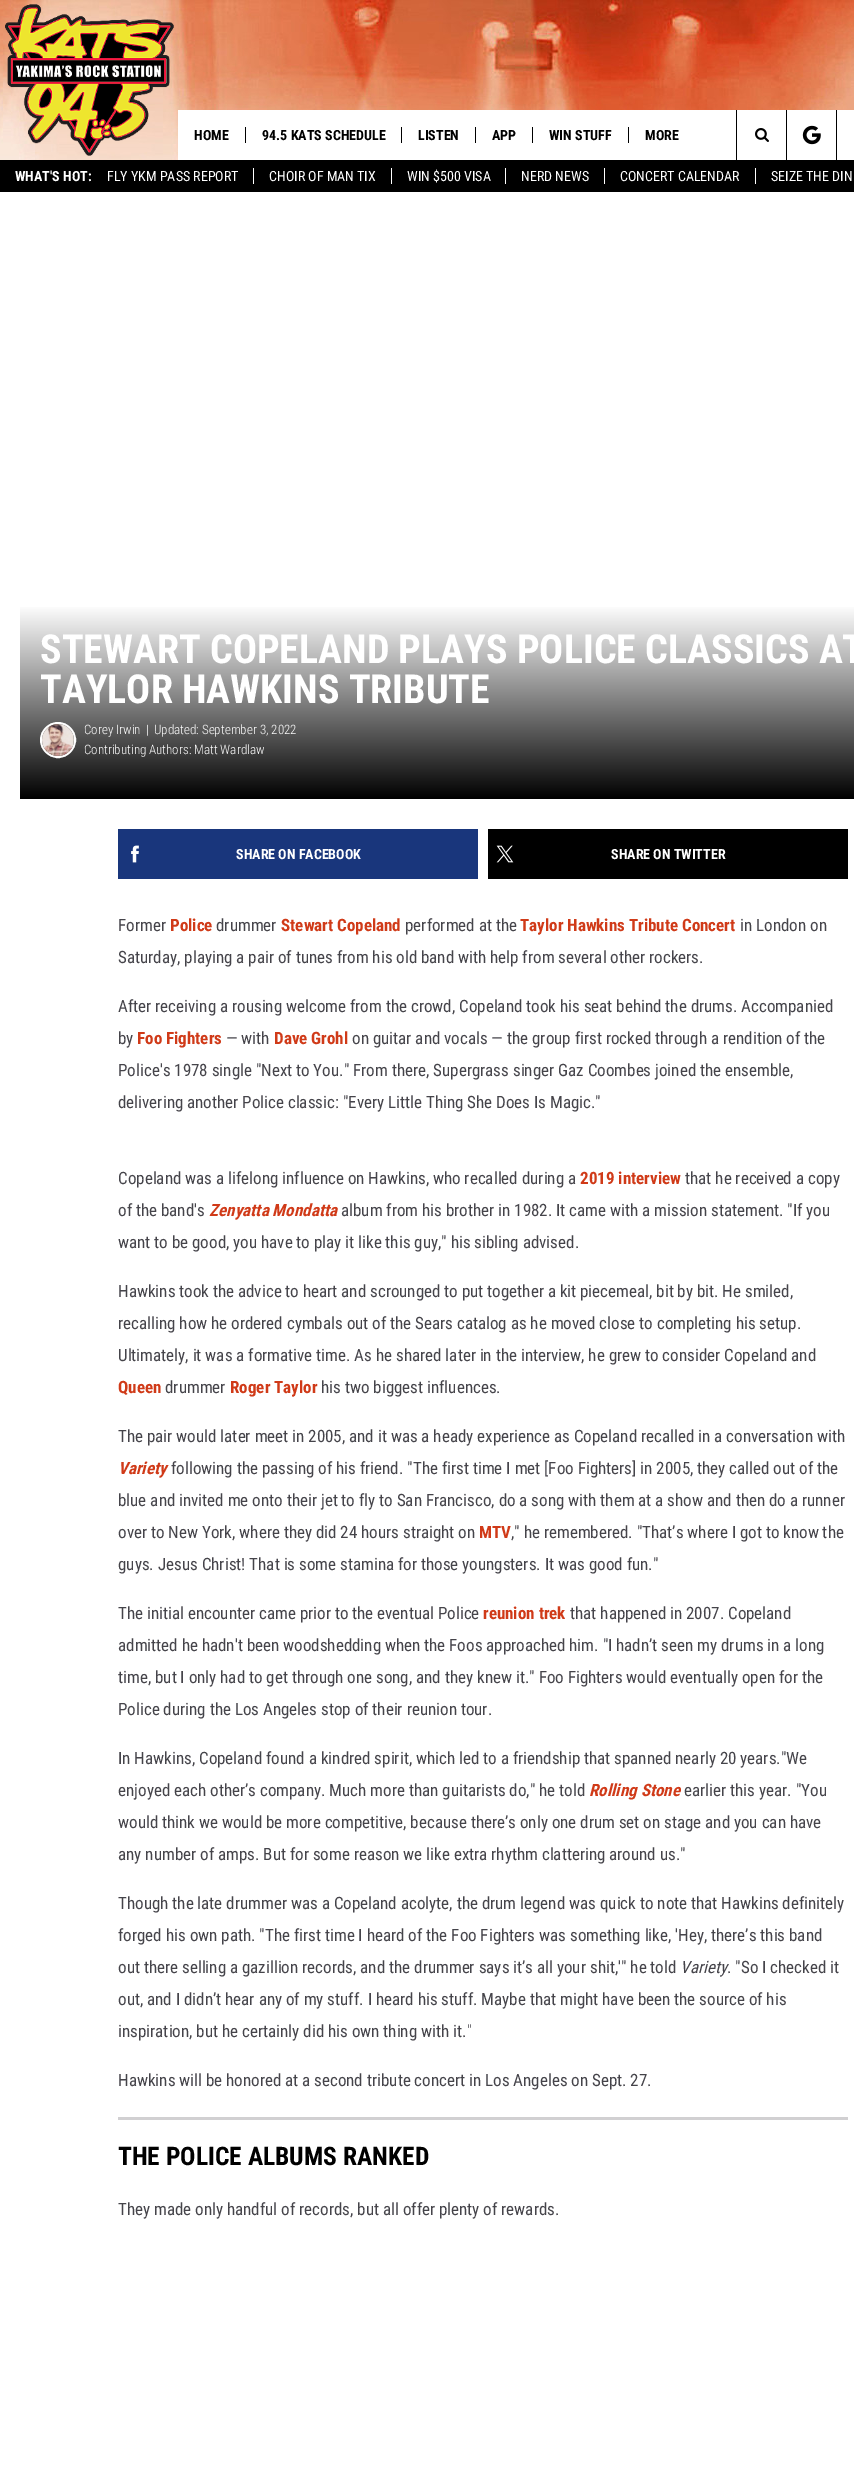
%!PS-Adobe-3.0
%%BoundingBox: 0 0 854 2469
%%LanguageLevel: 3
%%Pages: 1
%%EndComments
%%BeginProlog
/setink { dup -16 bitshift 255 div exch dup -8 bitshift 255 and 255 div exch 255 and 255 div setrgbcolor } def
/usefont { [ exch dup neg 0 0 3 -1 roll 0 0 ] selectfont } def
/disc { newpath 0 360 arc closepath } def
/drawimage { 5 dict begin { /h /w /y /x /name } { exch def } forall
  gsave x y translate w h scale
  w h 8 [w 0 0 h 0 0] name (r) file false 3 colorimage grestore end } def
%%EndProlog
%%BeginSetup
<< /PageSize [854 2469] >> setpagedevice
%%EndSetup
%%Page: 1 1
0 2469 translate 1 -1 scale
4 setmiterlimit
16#FFFFFF setink
0 0 854 2469 rectfill
(img1.raw) 0 0 854 160 drawimage
(img2.raw) 5 4 169 152 drawimage
178 110 676 50 rectfill
/RobotoCondensed-Bold 14 usefont
16#000000 setink
194 140 moveto (HOME) show
245 127 1 16 rectfill
262 140 moveto (94.5 KATS SCHEDULE) show
401 127 1 16 rectfill
418 140 moveto (LISTEN) show
475 127 1 16 rectfill
492 140 moveto (APP) show
532 127 1 16 rectfill
549 140 moveto (WIN STUFF) show
628 127 1 16 rectfill
645 140 moveto (MORE) show
736 110 1 50 rectfill
(img3.raw) 755 128 14 14 drawimage
786 110 1 50 rectfill
(img4.raw) 802 125 19 20 drawimage
836 110 1 50 rectfill
0 160 854 32 rectfill
16#FFFFFF setink
15 181 moveto (WHAT'S HOT:) show
/RobotoCondensed-Regular 14 usefont
107 181 moveto (FLY YKM PASS REPORT) show
269 181 moveto (CHOIR OF MAN TIX) show
253 168 1 16 rectfill
407 181 moveto (WIN $500 VISA) show
391 168 1 16 rectfill
521 181 moveto (NERD NEWS) show
505 168 1 16 rectfill
620 181 moveto (CONCERT CALENDAR) show
604 168 1 16 rectfill
771 181 moveto (SEIZE THE DIN) show
755 168 1 16 rectfill
gsave 20 607 moveto 854 607 lineto 854 799 lineto 20 799 lineto closepath clip newpath
<< /ShadingType 2 /ColorSpace /DeviceRGB /Coords [483 605 483 799] /Extend [true true] /Function << /FunctionType 2 /Domain [0 1] /C0 [1 1 1] /C1 [0 0 0] /N 1 >> >> shfill grestore
/RobotoCondensed-Bold 40 usefont
40 663 moveto (STEWART COPELAND PLAYS POLICE CLASSICS AT) show
40 703 moveto (TAYLOR HAWKINS TRIBUTE) show
2 setlinewidth
58 740 17 disc stroke
(img5.raw) 42 724 32 32 drawimage
/RobotoCondensed-Light 13 usefont
[
    [(Corey Irwin) 84 734]
    [(|) 146 734]
    [(Updated: September 3, 2022) 154 734]
    [(Contributing Authors: Matt Wardlaw) 84 754]
] { aload pop moveto show } forall
16#19367C setink
118 829 360 50 rectfill
(img6.raw) 131 845 8 18 drawimage
/RobotoCondensed-Bold 14 usefont
16#FFFFFF setink
236 859 moveto (SHARE ON FACEBOOK) show
16#000000 setink
488 829 360 50 rectfill
(img7.raw) 496 845 18 18 drawimage
16#FFFFFF setink
611 859 moveto (SHARE ON TWITTER) show
/RobotoCondensed-Regular 17 usefont
16#45444A setink
118 931 moveto (Former) show
/RobotoCondensed-Bold 17 usefont
16#D03A18 setink
170 931 moveto (Police) show
/RobotoCondensed-Regular 17 usefont
16#45444A setink
216 931 moveto (drummer) show
/RobotoCondensed-Bold 17 usefont
16#D03A18 setink
281 931 moveto (Stewart Copeland) show
/RobotoCondensed-Regular 17 usefont
16#45444A setink
405 931 moveto (performed at the) show
/RobotoCondensed-Bold 17 usefont
16#D03A18 setink
520 931 moveto (Taylor Hawkins Tribute Concert) show
/RobotoCondensed-Regular 17 usefont
16#45444A setink
[
    [(in London on) 740 931]
    [(Saturday, playing a pair of tunes from his old band with help from several other rockers.) 118 963]
    [(After receiving a rousing welcome from the crowd, Copeland took his seat behind the drums. Accompanied) 118 1012]
    [(by) 118 1044]
] { aload pop moveto show } forall
/RobotoCondensed-Bold 17 usefont
16#D03A18 setink
137 1044 moveto (Foo Fighters) show
/RobotoCondensed-Regular 17 usefont
16#45444A setink
226 1044 moveto (— with) show
/RobotoCondensed-Bold 17 usefont
16#D03A18 setink
274 1044 moveto (Dave Grohl) show
/RobotoCondensed-Regular 17 usefont
16#45444A setink
[
    [(on guitar and vocals — the group first rocked through a rendition of the) 352 1044]
    [(Police's 1978 single "Next to You." From there, Supergrass singer Gaz Coombes joined the ensemble,) 118 1076]
    [(delivering another Police classic: "Every Little Thing She Does Is Magic.") 118 1108]
    [(Copeland was a lifelong influence on Hawkins, who recalled during a) 118 1184]
] { aload pop moveto show } forall
/RobotoCondensed-Bold 17 usefont
16#D03A18 setink
580 1184 moveto (2019 interview) show
/RobotoCondensed-Regular 17 usefont
16#45444A setink
685 1184 moveto (that he received a copy) show
118 1216 moveto (of the band's) show
/RobotoCondensed-BoldItalic 17 usefont
16#D03A18 setink
209 1216 moveto (Zenyatta Mondatta) show
/RobotoCondensed-Regular 17 usefont
16#45444A setink
[
    [(album from his brother in 1982. It came with a mission statement. "If you) 341 1216]
    [(want to be good, you have to play it like this guy," his sibling advised.) 118 1248]
    [(Hawkins took the advice to heart and scrounged to put together a kit piecemeal, bit by bit. He smiled,) 118 1297]
    [(recalling how he ordered cymbals out of the Sears catalog as he moved close to completing his setup.) 118 1329]
    [(Ultimately, it was a formative time. As he shared later in the interview, he grew to consider Copeland and) 118 1361]
] { aload pop moveto show } forall
/RobotoCondensed-Bold 17 usefont
16#D03A18 setink
118 1393 moveto (Queen) show
/RobotoCondensed-Regular 17 usefont
16#45444A setink
165 1393 moveto (drummer) show
/RobotoCondensed-Bold 17 usefont
16#D03A18 setink
230 1393 moveto (Roger Taylor) show
/RobotoCondensed-Regular 17 usefont
16#45444A setink
321 1393 moveto (his two biggest influences.) show
118 1442 moveto (The pair would later meet in 2005, and it was a heady experience as Copeland recalled in a conversation with) show
/RobotoCondensed-BoldItalic 17 usefont
16#D03A18 setink
118 1474 moveto (Variety) show
/RobotoCondensed-Regular 17 usefont
16#45444A setink
[
    [(following the passing of his friend. "The first time I met [Foo Fighters] in 2005, they called out of the) 171 1474]
    [(blue and invited me onto their jet to fly to San Francisco, do a song with them at a show and then do a runner) 118 1506]
    [(over to New York, where they did 24 hours straight on) 118 1538]
] { aload pop moveto show } forall
/RobotoCondensed-Bold 17 usefont
16#D03A18 setink
479 1538 moveto (MTV) show
/RobotoCondensed-Regular 17 usefont
16#45444A setink
[
    [(," he remembered. "That’s where I got to know the) 511 1538]
    [(guys. Jesus Christ! That is some stamina for those youngsters. It was good fun.") 118 1570]
    [(The initial encounter came prior to the eventual Police) 118 1619]
] { aload pop moveto show } forall
/RobotoCondensed-Bold 17 usefont
16#D03A18 setink
483 1619 moveto (reunion trek) show
/RobotoCondensed-Regular 17 usefont
16#45444A setink
[
    [(that happened in 2007. Copeland) 570 1619]
    [(admitted he hadn't been woodshedding when the Foos approached him. "I hadn’t seen my drums in a long) 118 1651]
    [(time, but I only had to get through one song, and they knew it." Foo Fighters would eventually open for the) 118 1683]
    [(Police during the Los Angeles stop of their reunion tour.) 118 1715]
    [(In Hawkins, Copeland found a kindred spirit, which led to a friendship that spanned nearly 20 years."We) 118 1764]
    [(enjoyed each other’s company. Much more than guitarists do," he told) 118 1796]
] { aload pop moveto show } forall
/RobotoCondensed-BoldItalic 17 usefont
16#D03A18 setink
589 1796 moveto (Rolling Stone) show
/RobotoCondensed-Regular 17 usefont
16#45444A setink
[
    [(earlier this year. "You) 684 1796]
    [(would think we would be more competitive, because there’s only one drum set on stage and you can have) 118 1828]
    [(any number of amps. But for some reason we like extra rhythm clattering around us.") 118 1860]
    [(Though the late drummer was a Copeland acolyte, the drum legend was quick to note that Hawkins definitely) 118 1909]
    [(forged his own path. "The first time I heard of the Foo Fighters was something like, 'Hey, there’s this band) 118 1941]
    [(out there selling a gazillion records, and the drummer says it’s all your shit,'" he told) 118 1973]
] { aload pop moveto show } forall
/RobotoCondensed-Italic 17 usefont
680 1973 moveto (Variety) show
/RobotoCondensed-Regular 17 usefont
[
    [(. "So I checked it) 727 1973]
    [(out, and I didn’t hear any of my stuff. I heard his stuff. Maybe that might have been the source of his) 118 2005]
    [(inspiration, but he certainly did his own thing with it.) 118 2037]
] { aload pop moveto show } forall
/RobotoCondensed-Light 17 usefont
467 2037 moveto (") show
/RobotoCondensed-Regular 17 usefont
118 2086 moveto (Hawkins will be honored at a second tribute concert in Los Angeles on Sept. 27.) show
16#D1D0D2 setink
118 2117 730 3 rectfill
/RobotoCondensed-Bold 25.5 usefont
16#000000 setink
118 2165 moveto (THE POLICE ALBUMS RANKED) show
/RobotoCondensed-Regular 17 usefont
16#45444A setink
118 2215 moveto (They made only handful of records, but all offer plenty of rewards.) show
showpage
%%EOF
